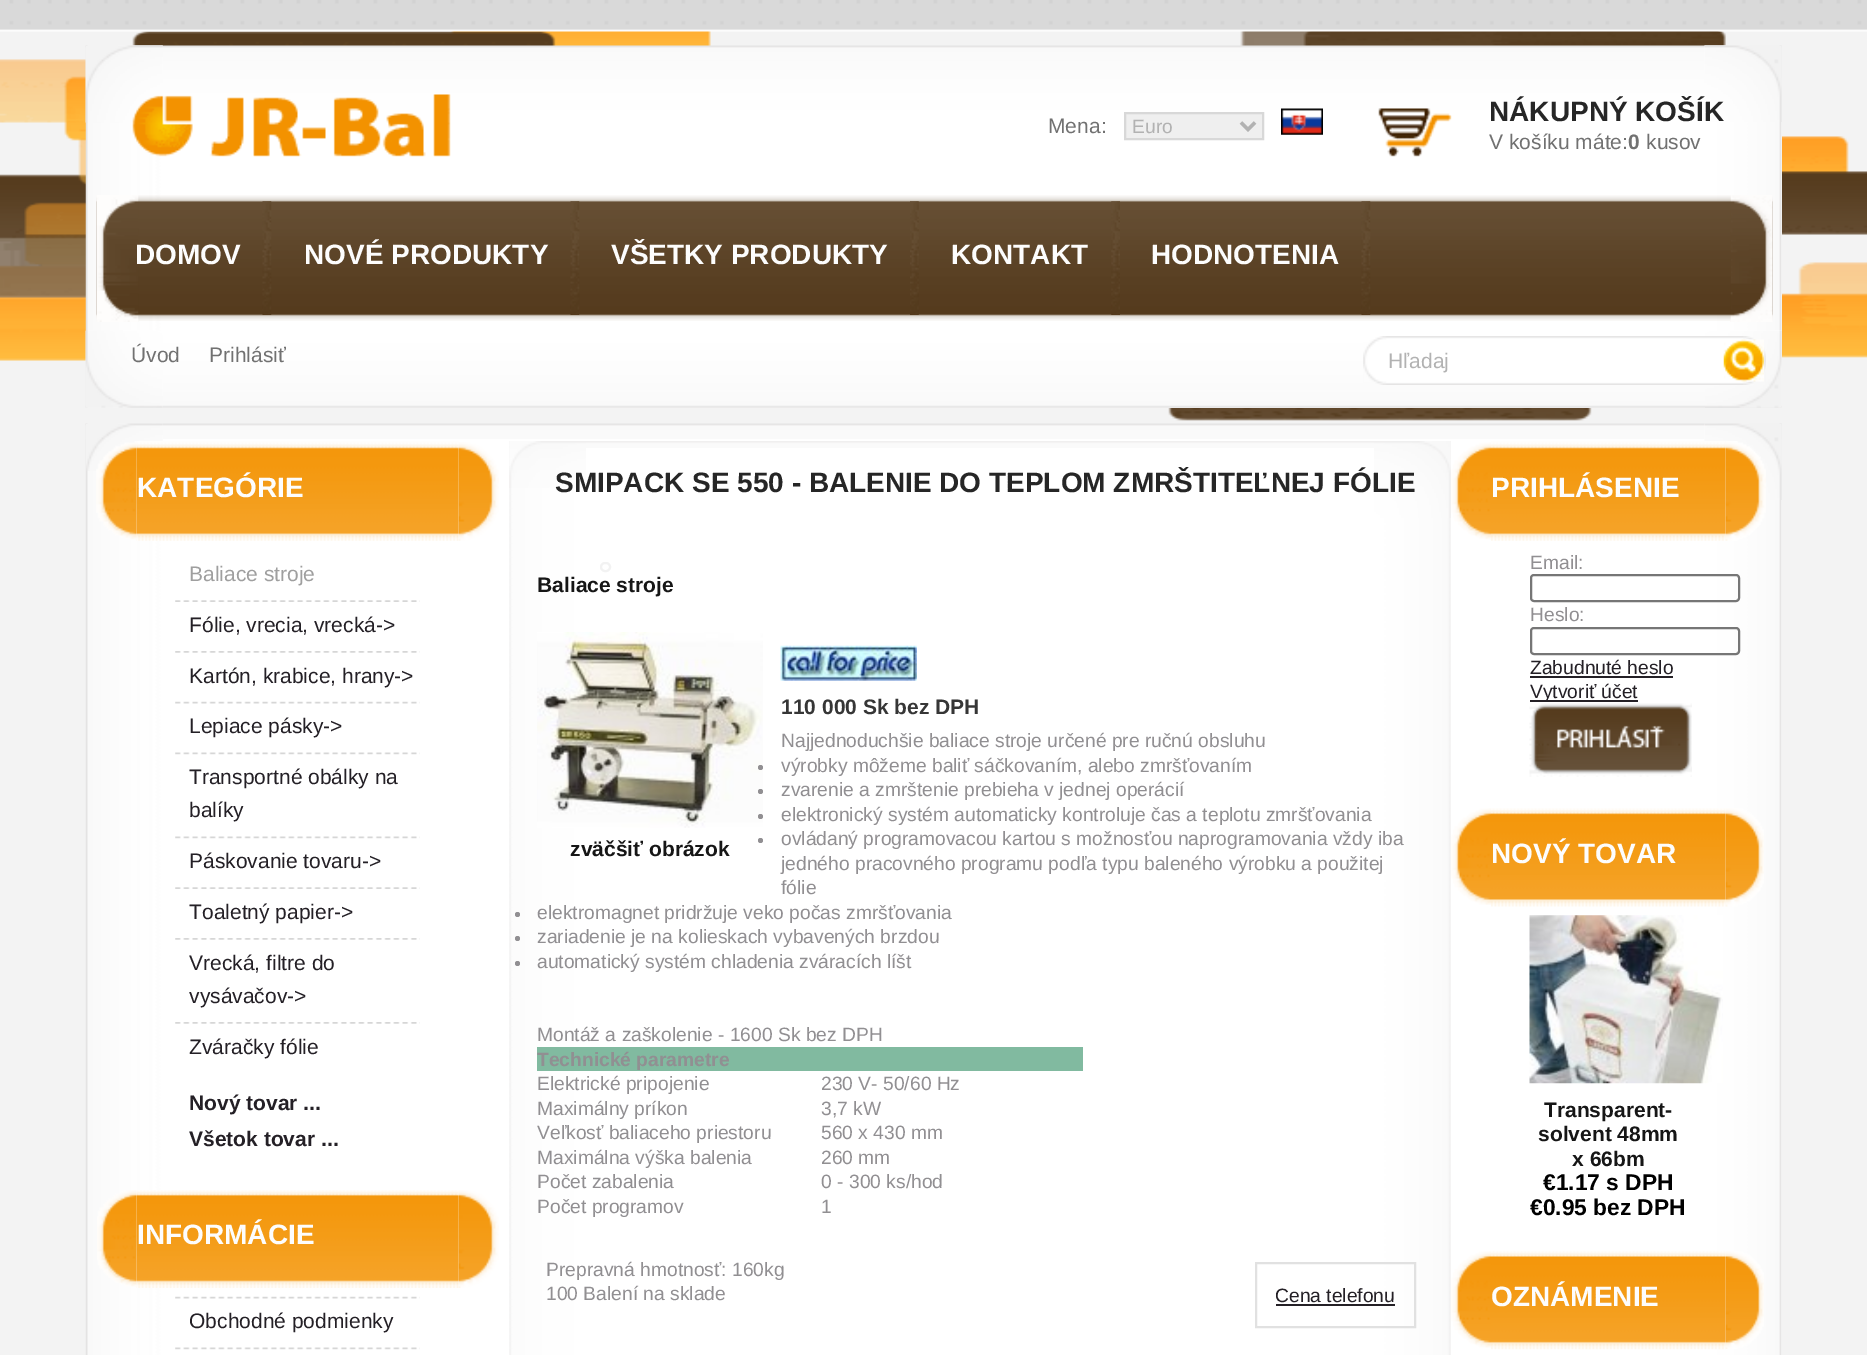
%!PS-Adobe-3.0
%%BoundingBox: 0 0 1867 1355
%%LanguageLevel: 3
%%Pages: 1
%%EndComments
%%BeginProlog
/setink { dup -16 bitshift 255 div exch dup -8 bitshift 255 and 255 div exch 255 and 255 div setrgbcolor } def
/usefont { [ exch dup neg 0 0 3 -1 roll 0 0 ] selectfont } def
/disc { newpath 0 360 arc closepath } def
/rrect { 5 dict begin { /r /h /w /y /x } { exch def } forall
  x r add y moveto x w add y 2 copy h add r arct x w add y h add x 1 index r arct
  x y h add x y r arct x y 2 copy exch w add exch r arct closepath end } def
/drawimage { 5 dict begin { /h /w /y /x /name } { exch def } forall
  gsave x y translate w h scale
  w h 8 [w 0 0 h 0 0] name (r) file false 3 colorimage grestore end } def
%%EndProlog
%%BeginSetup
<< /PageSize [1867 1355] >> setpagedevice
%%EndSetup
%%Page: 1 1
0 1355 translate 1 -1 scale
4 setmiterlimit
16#FFFFFF setink
0 0 1867 1355 rectfill
(img1.raw) 0 31 1867 1324 drawimage
(img2.raw) 0 0 1867 32 drawimage
86 46 1696 362 rectfill
(img3.raw) 85 45 1697 78 drawimage
(img4.raw) 1704 45 78 363 drawimage
(img5.raw) 85 330 1697 78 drawimage
(img6.raw) 85 45 78 363 drawimage
(img7.raw) 85 45 78 78 drawimage
(img8.raw) 1704 45 78 77 drawimage
(img9.raw) 1705 331 77 77 drawimage
(img10.raw) 85 330 78 78 drawimage
(img11.raw) 132 94 319 63 drawimage
/LiberationSans-Regular 21 usefont
16#717171 setink
1048 133 moveto (Mena:) show
16#EFEFEF setink
1125 113 moveto 1263 113 lineto 1263 139 lineto 1125 139 lineto closepath gsave fill grestore
16#D8D8D8 setink
2 setlinewidth
stroke
16#B2B2B2 setink
3.5 setlinewidth
1241 122.5 moveto 1248 129.5 lineto 1255 122.5 lineto stroke
/LiberationSans-Regular 19.25 usefont
1132 133 moveto (Euro) show
(img12.raw) 1281 108 42 27 drawimage
(img13.raw) 1378 108 74 49 drawimage
/LiberationSans-Bold 28 usefont
16#262626 setink
1489 121 moveto (NÁKUPNÝ KOŠÍK) show
/LiberationSans-Regular 21 usefont
16#717171 setink
1489 149 moveto (V košíku máte:) show
/LiberationSans-Bold 21 usefont
1628 149 moveto (0) show
/LiberationSans-Regular 21 usefont
1646 149 moveto (kusov) show
(img14.raw) 96 195 1677 126 drawimage
(img15.raw) 96 195 43 127 drawimage
(img16.raw) 1730 195 43 127 drawimage
(img17.raw) 262 201 10 114 drawimage
/LiberationSans-Bold 28 usefont
16#FDFDFD setink
135 264 moveto (DOMOV) show
(img17.raw) 570 201 10 114 drawimage
304 264 moveto (NOVÉ PRODUKTY) show
(img18.raw) 910 201 9 114 drawimage
611 264 moveto (VŠETKY PRODUKTY) show
(img19.raw) 1111 201 9 114 drawimage
951 264 moveto (KONTAKT) show
(img20.raw) 1361 201 10 114 drawimage
1151 264 moveto (HODNOTENIA) show
/LiberationSans-Regular 21 usefont
16#717171 setink
131 362 moveto (Úvod) show
209 362 moveto (Prihlásiť) show
(img21.raw) 1363 336 403 49 drawimage
16#B2B2B2 setink
1388 368 moveto (Hľadaj) show
(img22.raw) 1723 339 41 43 drawimage
16#FFFFFF setink
162 424 1620 931 rectfill
(img23.raw) 85 423 1697 16 drawimage
(img24.raw) 1704 423 78 932 drawimage
(img25.raw) 85 423 78 932 drawimage
(img26.raw) 86 423 77 48 drawimage
(img27.raw) 1704 423 78 77 drawimage
(img28.raw) 96 441 41 99 drawimage
(img29.raw) 458 442 41 99 drawimage
(img30.raw) 136 441 323 100 drawimage
/LiberationSans-Bold 28 usefont
16#FDFDFD setink
137 497 moveto (KATEGÓRIE) show
/LiberationSans-Regular 21 usefont
16#9F9F9F setink
189 581 moveto (Baliace stroje) show
(img31.raw) 175 600 245 2 drawimage
16#242026 setink
189 632 moveto (Fólie, vrecia, vrecká->) show
(img32.raw) 175 651 245 2 drawimage
189 683 moveto (Kartón, krabice, hrany->) show
(img33.raw) 175 701 245 3 drawimage
189 733 moveto (Lepiace pásky->) show
(img34.raw) 175 752 245 3 drawimage
189 784 moveto (Transportné obálky na) show
189 817 moveto (balíky) show
(img34.raw) 175 836 245 3 drawimage
189 868 moveto (Páskovanie tovaru->) show
(img31.raw) 175 887 245 2 drawimage
189 919 moveto (Toaletný papier->) show
(img32.raw) 175 938 245 2 drawimage
189 970 moveto (Vrecká, filtre do) show
189 1003 moveto (vysávačov->) show
(img32.raw) 175 1022 245 2 drawimage
189 1054 moveto (Zváračky fólie) show
/LiberationSans-Bold 21 usefont
189 1110 moveto (Nový tovar ...) show
189 1146 moveto (Všetok tovar ...) show
(img35.raw) 97 1190 40 97 drawimage
(img36.raw) 458 1190 41 98 drawimage
(img37.raw) 136 1190 323 98 drawimage
/LiberationSans-Bold 28 usefont
16#FDFDFD setink
137 1244 moveto (INFORMÁCIE) show
(img33.raw) 175 1296 245 3 drawimage
/LiberationSans-Regular 21 usefont
16#242026 setink
189 1328 moveto (Obchodné podmienky) show
(img34.raw) 175 1347 245 3 drawimage
(img38.raw) 509 441 942 7 drawimage
(img39.raw) 1384 441 67 914 drawimage
(img40.raw) 509 441 67 914 drawimage
(img41.raw) 509 441 77 47 drawimage
(img42.raw) 1374 441 77 77 drawimage
/LiberationSans-Bold 28 usefont
16#262626 setink
555 492 moveto (SMIPACK SE 550 - BALENIE DO TEPLOM ZMRŠTITEĽNEJ FÓLIE) show
16#F2F2F2 setink
2 setlinewidth
601 563 9 8 4 rrect stroke
/LiberationSans-Bold 21 usefont
16#161616 setink
537 592 moveto (Baliace stroje) show
(img43.raw) 780 645 137 36 drawimage
16#363636 setink
781 714 moveto (110 000 Sk bez DPH) show
/LiberationSans-Regular 19.25 usefont
16#918F92 setink
781 747 moveto (Najjednoduchšie baliace stroje určené pre ručnú obsluhu) show
(img44.raw) 537 632 226 196 drawimage
760.5 767.5 2.5 disc fill
781 772 moveto (výrobky môžeme baliť sáčkovaním, alebo zmršťovaním) show
760.5 791.5 2.5 disc fill
781 796 moveto (zvarenie a zmrštenie prebieha v jednej operácií) show
760.5 816.5 2.5 disc fill
781 821 moveto (elektronický systém automaticky kontroluje čas a teplotu zmršťovania) show
760.5 840.5 2.5 disc fill
[
    [(ovládaný programovacou kartou s možnosťou naprogramovania vždy iba) 781 845]
    [(jedného pracovného programu podľa typu baleného výrobku a použitej) 781 870]
    [(fólie) 781 894]
] { aload pop moveto show } forall
517.5 914.5 2.5 disc fill
537 919 moveto (elektromagnet pridržuje veko počas zmršťovania) show
517.5 938.5 2.5 disc fill
537 943 moveto (zariadenie je na kolieskach vybavených brzdou) show
517.5 963.5 2.5 disc fill
537 968 moveto (automatický systém chladenia zváracích líšt) show
537 1041 moveto (Montáž a zaškolenie - 1600 Sk bez DPH) show
16#81BAA0 setink
537 1047 546 24 rectfill
/LiberationSans-Bold 19.25 usefont
16#918F92 setink
537 1066 moveto (Technické parametre) show
/LiberationSans-Regular 19.25 usefont
[
    [(Elektrické pripojenie) 537 1090]
    [(230 V- 50/60 Hz) 821 1090]
    [(Maximálny príkon) 537 1115]
    [(3,7 kW) 821 1115]
    [(Veľkosť baliaceho priestoru) 537 1139]
    [(560 x 430 mm) 821 1139]
    [(Maximálna výška balenia) 537 1164]
    [(260 mm) 821 1164]
    [(Počet zabalenia) 537 1188]
    [(0 - 300 ks/hod) 821 1188]
    [(Počet programov) 537 1213]
    [(1) 821 1213]
] { aload pop moveto show } forall
/LiberationSans-Bold 21 usefont
16#161616 setink
570 856 moveto (zväčšiť obrázok) show
/LiberationSans-Regular 19.25 usefont
16#918F92 setink
546 1276 moveto (Prepravná hmotnosť: 160kg) show
546 1300 moveto (100 Balení na sklade) show
16#E1E1E1 setink
1256 1263 159 64 rectstroke
16#242026 setink
1275 1302 moveto (Cena telefonu) show
1276 1304 119 2 rectfill
(img45.raw) 1451 442 40 98 drawimage
(img46.raw) 1725 441 41 100 drawimage
(img47.raw) 1491 441 235 100 drawimage
/LiberationSans-Bold 28 usefont
16#FDFDFD setink
1491 497 moveto (PRIHLÁSENIE) show
/LiberationSans-Regular 19.25 usefont
16#918F92 setink
1530 569 moveto (Email:) show
16#767676 setink
1531 575 208 26 3 rrect stroke
16#918F92 setink
1530 621 moveto (Heslo:) show
16#767676 setink
1531 628 208 26 3 rrect stroke
16#242026 setink
1530 674 moveto (Zabudnuté heslo) show
1530 676 143 2 rectfill
1530 700 108 2 rectfill
1530 698 moveto (Vytvoriť účet) show
(img48.raw) 1529 703 163 74 drawimage
(img49.raw) 1451 808 40 97 drawimage
(img50.raw) 1725 808 39 99 drawimage
(img51.raw) 1491 808 235 99 drawimage
/LiberationSans-Bold 28 usefont
16#FDFDFD setink
1491 863 moveto (NOVÝ TOVAR) show
(img52.raw) 1529 915 194 169 drawimage
/LiberationSans-Bold 21 usefont
16#161616 setink
[
    [(Transparent-) 1544 1117]
    [(solvent 48mm) 1538 1141]
    [(x 66bm) 1572 1166]
] { aload pop moveto show } forall
/LiberationSans-Bold 22.75 usefont
16#000000 setink
1543 1190 moveto (€1.17 s DPH) show
1530 1215 moveto (€0.95 bez DPH) show
(img53.raw) 1451 1251 40 97 drawimage
(img54.raw) 1725 1251 39 98 drawimage
(img55.raw) 1491 1251 235 99 drawimage
/LiberationSans-Bold 28 usefont
16#FDFDFD setink
1491 1306 moveto (OZNÁMENIE) show
showpage
%%EOF
